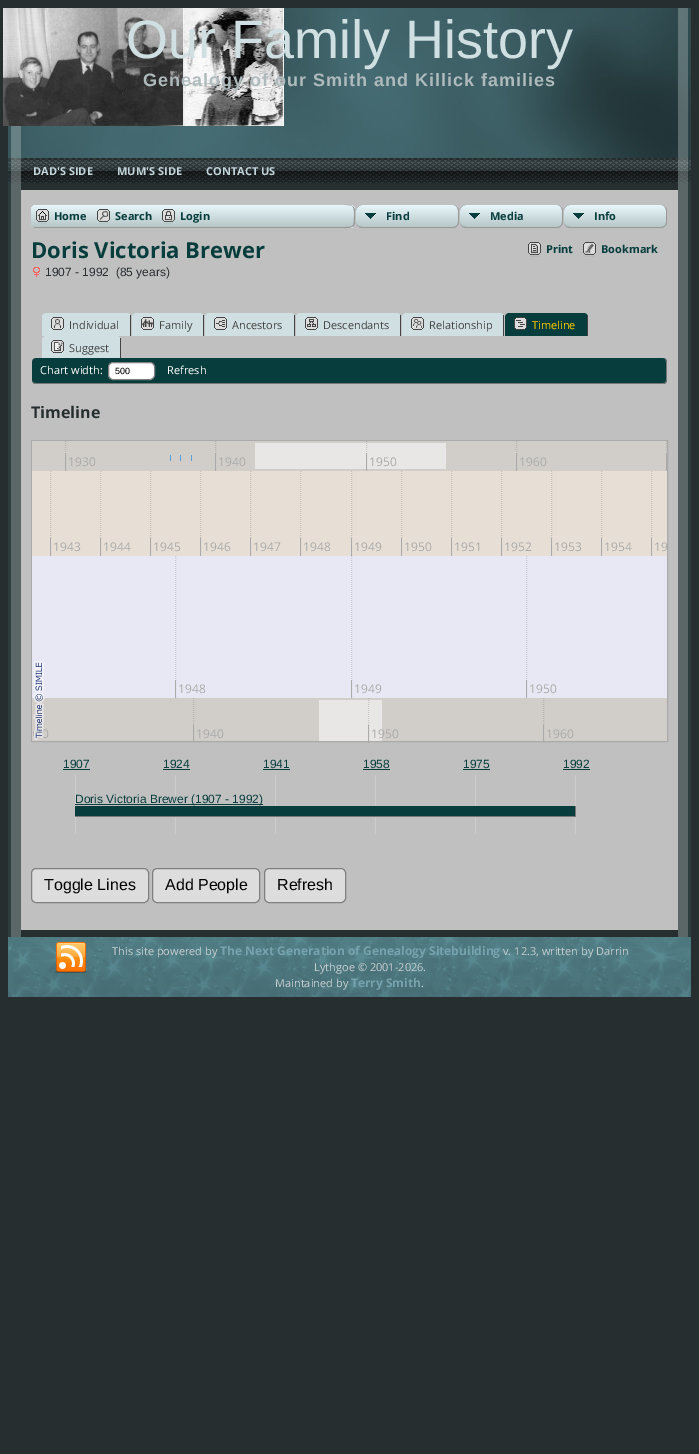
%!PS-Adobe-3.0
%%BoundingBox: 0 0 699 1454
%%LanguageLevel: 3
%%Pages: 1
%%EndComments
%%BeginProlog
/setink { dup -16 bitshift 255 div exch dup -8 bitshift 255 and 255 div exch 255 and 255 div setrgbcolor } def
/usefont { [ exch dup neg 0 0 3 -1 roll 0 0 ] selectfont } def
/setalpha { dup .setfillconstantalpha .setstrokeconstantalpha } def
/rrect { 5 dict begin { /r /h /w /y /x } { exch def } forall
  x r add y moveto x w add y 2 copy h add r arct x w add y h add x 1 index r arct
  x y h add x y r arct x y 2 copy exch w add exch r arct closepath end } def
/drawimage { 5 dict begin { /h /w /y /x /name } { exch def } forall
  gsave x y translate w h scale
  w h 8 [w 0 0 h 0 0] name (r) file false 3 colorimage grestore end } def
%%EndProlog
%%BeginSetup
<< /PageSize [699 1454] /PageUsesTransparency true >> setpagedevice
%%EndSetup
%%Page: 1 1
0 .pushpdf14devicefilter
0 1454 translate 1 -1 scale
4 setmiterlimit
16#272E30 setink
0 0 699 1454 rectfill
(img1.raw) 8 8 683 150 drawimage
(img3.raw) 21 8 657 150 drawimage
(img2.raw) 3 8 281 118 drawimage
/LiberationSans-Regular 54 usefont
16#CFDFE2 setink
126 58 moveto (Our Family History) show
/LiberationSans-Bold 18 usefont
16#AEBABC setink
143 86 moveto 1 0 (Genealogy of our Smith and Killick families) ashow
(img25.raw) 8 158 683 25 drawimage
(img4.raw) 21 158 657 25 drawimage
/OpenSans-Bold 11 usefont
16#C2D6DB setink
[
    [(DAD'S SIDE) 33 175]
    [(MUM'S SIDE) 117 175]
    [(CONTACT US) 206 175]
] { aload pop moveto show } forall
16#C0C0C0 setink
21 190 657 740 rectfill
16#CFDFE2 setink
31 205 637 23 6 rrect fill
gsave
31 205 637 23 6 rrect clip newpath
gsave 37 205 moveto 662 205 lineto 665.5 205 668 207.5 668 211 curveto 668 227 lineto 31 227 lineto 31 211 lineto 31 207.5 33.5 205 37 205 curveto closepath clip newpath
<< /ShadingType 2 /ColorSpace /DeviceRGB /Coords [350 205 350 227] /Extend [true true] /Function << /FunctionType 2 /Domain [0 1] /C0 [0.906 0.969 0.98] /C1 [0.718 0.78 0.784] /N 1 >> >> shfill grestore
grestore
16#999999 setink
34 227 310 1 rectfill
(img5.raw) 36 209 13 15 drawimage
16#073D3C setink
54 220 moveto (Home) show
(img6.raw) 97 209 13 15 drawimage
115 220 moveto (Search) show
(img7.raw) 162 209 13 15 drawimage
180 220 moveto (Login) show
16#C0C0C0 setink
349 205 319 23 rectfill
gsave
344 205 moveto 349 205 lineto 352.5 205 355 207.5 355 211 curveto 355 222 lineto 355 225.5 352.5 228 349 228 curveto 344 228 lineto closepath clip newpath
gsave 344 205 moveto 355 205 lineto 355 227 lineto 344 227 lineto closepath clip newpath
<< /ShadingType 2 /ColorSpace /DeviceRGB /Coords [349 205 349 227] /Extend [true true] /Function << /FunctionType 2 /Domain [0 1] /C0 [0.906 0.969 0.98] /C1 [0.718 0.78 0.784] /N 1 >> >> shfill grestore
gsave 344 227 moveto 355 227 lineto 355 228 lineto 344 228 lineto closepath clip newpath
<< /ShadingType 2 /ColorSpace /DeviceRGB /Coords [349 227 349 249] /Extend [true true] /Function << /FunctionType 2 /Domain [0 1] /C0 [0.906 0.969 0.98] /C1 [0.718 0.78 0.784] /N 1 >> >> shfill grestore
grestore
16#999999 setink
344 205 moveto 348 205 354 204.5 355 210 curveto 355 223 lineto 354 228.5 348 228 344 228 curveto closepath 344 205 moveto 350 205 lineto 355 206.5 354 213 354 216.5 curveto 354 226.5 353.5 227 344 227 curveto closepath eofill
(img8.raw) 356 205 102 22 drawimage
362 205 moveto 453 205 lineto 456 205 459 208 459 211 curveto 459 222 lineto 459 225 456 228 453 228 curveto 362 228 lineto 359 228 356 225 356 222 curveto 356 211 lineto 356 208 359 205 362 205 curveto closepath 362 205 moveto 453 205 lineto 456 205 458 208 458 211 curveto 458 222 lineto 458 225 456 227 453 227 curveto 362 227 lineto 359 227 356 225 356 222 curveto 356 211 lineto 356 208 359 205 362 205 curveto closepath eofill
16#073D3C setink
386 220 moveto (Find) show
(img8.raw) 460 205 102 22 drawimage
16#999999 setink
466 205 moveto 557 205 lineto 560 205 563 208 563 211 curveto 563 222 lineto 563 225 560 228 557 228 curveto 466 228 lineto 463 228 460 225 460 222 curveto 460 211 lineto 460 208 463 205 466 205 curveto closepath 466 205 moveto 557 205 lineto 560 205 562 208 562 211 curveto 562 222 lineto 562 225 560 227 557 227 curveto 466 227 lineto 463 227 460 225 460 222 curveto 460 211 lineto 460 208 463 205 466 205 curveto closepath eofill
16#073D3C setink
490 220 moveto (Media) show
(img8.raw) 564 205 102 22 drawimage
16#999999 setink
570 205 moveto 661 205 lineto 664 205 667 208 667 211 curveto 667 222 lineto 667 225 664 228 661 228 curveto 570 228 lineto 567 228 564 225 564 222 curveto 564 211 lineto 564 208 567 205 570 205 curveto closepath 570 205 moveto 661 205 lineto 664 205 666 208 666 211 curveto 666 222 lineto 666 225 664 227 661 227 curveto 570 227 lineto 567 227 564 225 564 222 curveto 564 211 lineto 564 208 567 205 570 205 curveto closepath eofill
16#073D3C setink
594 220 moveto (Info) show
/OpenSans-Bold 22 usefont
31 258 moveto (Doris Victoria Brewer) show
(img9.raw) 528 242 13 15 drawimage
/OpenSans-Bold 11 usefont
546 253 moveto (Print) show
(img10.raw) 583 242 13 15 drawimage
601 253 moveto (Bookmark) show
(img11.raw) 33 267 7 10 drawimage
/LiberationSans-Regular 12 usefont
16#272E30 setink
45 276 moveto (1907 - 1992  \(85 years\)) show
16#CFDFE2 setink
46 313 moveto 127 313 lineto 129 313 131 315 131 317 curveto 131 336 lineto 42 336 lineto 42 317 lineto 42 315 44 313 46 313 curveto closepath fill
16#444444 setink
130 315 1 21 rectfill
(img12.raw) 51 317 13 13 drawimage
/OpenSans-Regular 11 usefont
69 329 moveto (Individual) show
16#CFDFE2 setink
136 313 moveto 200 313 lineto 202 313 204 315 204 317 curveto 204 336 lineto 132 336 lineto 132 317 lineto 132 315 134 313 136 313 curveto closepath fill
16#444444 setink
203 315 1 21 rectfill
(img13.raw) 141 317 13 13 drawimage
159 329 moveto (Family) show
16#CFDFE2 setink
209 313 moveto 291 313 lineto 293 313 295 315 295 317 curveto 295 336 lineto 205 336 lineto 205 317 lineto 205 315 207 313 209 313 curveto closepath fill
16#444444 setink
294 315 1 21 rectfill
(img14.raw) 214 317 13 13 drawimage
232 329 moveto (Ancestors) show
16#CFDFE2 setink
300 313 moveto 397 313 lineto 399 313 401 315 401 317 curveto 401 336 lineto 296 336 lineto 296 317 lineto 296 315 298 313 300 313 curveto closepath fill
16#444444 setink
400 315 1 21 rectfill
(img15.raw) 305 317 13 13 drawimage
323 329 moveto (Descendants) show
16#CFDFE2 setink
406 313 moveto 500 313 lineto 502 313 504 315 504 317 curveto 504 336 lineto 402 336 lineto 402 317 lineto 402 315 404 313 406 313 curveto closepath fill
16#444444 setink
503 315 1 21 rectfill
(img16.raw) 411 317 13 13 drawimage
429 329 moveto (Relationship) show
16#073D3C setink
509 313 moveto 584 313 lineto 586 313 588 315 588 317 curveto 588 336 lineto 505 336 lineto 505 317 lineto 505 315 507 313 509 313 curveto closepath fill
16#444444 setink
587 315 1 21 rectfill
(img17.raw) 514 317 13 13 drawimage
16#FFCC00 setink
532 329 moveto (Timeline) show
16#CFDFE2 setink
46 336 moveto 117 336 lineto 119 336 121 338 121 340 curveto 121 358 lineto 42 358 lineto 42 340 lineto 42 338 44 336 46 336 curveto closepath fill
16#444444 setink
120 338 1 20 rectfill
(img18.raw) 51 340 13 13 drawimage
69 352 moveto (Suggest) show
16#073D3C setink
32 358 635 26 4 rrect fill
16#777777 setink
36 358 moveto 663 358 lineto 665 358 667 360 667 362 curveto 667 380 lineto 667 382 665 384 663 384 curveto 36 384 lineto 34 384 32 382 32 380 curveto 32 362 lineto 32 360 34 358 36 358 curveto closepath 36 358 moveto 663 358 lineto 665 358 666 360 666 362 curveto 666 380 lineto 666 382 665 383 663 383 curveto 36 383 lineto 34 383 32 382 32 380 curveto 32 362 lineto 32 360 34 358 36 358 curveto closepath eofill
16#FFFFFF setink
40 374 moveto (Chart width:) show
108.5 362.5 46 17 4.5 rrect gsave fill grestore
16#808080 setink
stroke
/LiberationSans-Regular 9 usefont
16#000000 setink
115 374 moveto (500) show
/OpenSans-Regular 11 usefont
16#FFFFFF setink
167 374 moveto (Refresh) show
/OpenSans-Bold 16 usefont
16#272E30 setink
31 418 moveto (Timeline) show
16#AAAAAA setink
31.5 440.5 636 301 rectstroke
16#D1CECA setink
32 441 635 30 rectfill
16#E8E7E5 setink
255 443 191 26 rectfill
16#B6B4B1 setink
[1 1] 0 setdash
65.5 441 moveto 65.5 471 lineto stroke
215.5 441 moveto 215.5 471 lineto stroke
0.25 setalpha
16#666666 setink
366.5 441 moveto 366.5 471 lineto stroke
1 setalpha
16#B6B4B1 setink
516.5 441 moveto 516.5 471 lineto stroke
666.5 441 moveto 666.5 471 lineto stroke
[
    [170 455 1 6 16#58A0DC]
    [180 455 1 6 16#58A0DC]
    [191 455 1 6 16#58A0DC]
    [65 453 1 18 16#AAAAAA]
] { aload pop setink rectfill } forall
/OpenSans-Regular 12 usefont
68 466 moveto (1930) show
215 453 1 18 rectfill
218 466 moveto (1940) show
366 453 1 18 rectfill
369 466 moveto (1950) show
516 453 1 18 rectfill
519 466 moveto (1960) show
666 453 1 18 rectfill
16#E7DFD6 setink
32 471 635 85 rectfill
16#C7C1BA setink
50.5 471 moveto 50.5 556 lineto stroke
100.5 471 moveto 100.5 556 lineto stroke
150.5 471 moveto 150.5 556 lineto stroke
200.5 471 moveto 200.5 556 lineto stroke
250.5 471 moveto 250.5 556 lineto stroke
300.5 471 moveto 300.5 556 lineto stroke
351.5 471 moveto 351.5 556 lineto stroke
401.5 471 moveto 401.5 556 lineto stroke
451.5 471 moveto 451.5 556 lineto stroke
501.5 471 moveto 501.5 556 lineto stroke
551.5 471 moveto 551.5 556 lineto stroke
601.5 471 moveto 601.5 556 lineto stroke
651.5 471 moveto 651.5 556 lineto stroke
16#AAAAAA setink
50 538 1 18 rectfill
53 551 moveto (1943) show
100 538 1 18 rectfill
103 551 moveto (1944) show
150 538 1 18 rectfill
153 551 moveto (1945) show
200 538 1 18 rectfill
203 551 moveto (1946) show
250 538 1 18 rectfill
253 551 moveto (1947) show
300 538 1 18 rectfill
303 551 moveto (1948) show
351 538 1 18 rectfill
354 551 moveto (1949) show
401 538 1 18 rectfill
404 551 moveto (1950) show
451 538 1 18 rectfill
454 551 moveto (1951) show
501 538 1 18 rectfill
504 551 moveto (1952) show
551 538 1 18 rectfill
554 551 moveto (1953) show
601 538 1 18 rectfill
604 551 moveto (1954) show
651 538 1 18 rectfill
654 551 moveto (19) show
16#E8E8F4 setink
32 556 635 142 rectfill
16#D1CECA setink
32 698 635 43 rectfill
16#AAAAAA setink
35 738 moveto (30) show
(img19.raw) 33 661 12 79 drawimage
16#C8C8D1 setink
175.5 556 moveto 175.5 698 lineto stroke
351.5 556 moveto 351.5 698 lineto stroke
526.5 556 moveto 526.5 698 lineto stroke
16#AAAAAA setink
175 680 1 18 rectfill
178 693 moveto (1948) show
351 680 1 18 rectfill
354 693 moveto (1949) show
526 680 1 18 rectfill
529 693 moveto (1950) show
16#E8E7E5 setink
319 700 63 41 rectfill
16#B6B4B1 setink
193.5 698 moveto 193.5 743 lineto stroke
0.25 setalpha
16#666666 setink
368.5 698 moveto 368.5 743 lineto stroke
1 setalpha
16#B6B4B1 setink
543.5 698 moveto 543.5 743 lineto stroke
16#AAAAAA setink
193 725 1 16 rectfill
196 738 moveto (1940) show
368 725 1 16 rectfill
371 738 moveto (1950) show
543 725 1 16 rectfill
546 738 moveto (1960) show
/LiberationSans-Regular 12 usefont
16#073D3C setink
63 768 moveto (1907) show
63 769 27 1 rectfill
163 768 moveto (1924) show
163 769 27 1 rectfill
263 768 moveto (1941) show
263 769 27 1 rectfill
363 768 moveto (1958) show
363 769 27 1 rectfill
463 768 moveto (1975) show
463 769 27 1 rectfill
563 768 moveto (1992) show
[
    [563 769 27 1 16#073D3C]
    [75 775 1 59 16#CCCCCC]
    [175 775 1 59 16#CCCCCC]
    [275 775 1 59 16#CCCCCC]
    [375 775 1 59 16#CCCCCC]
    [475 775 1 59 16#CCCCCC]
    [575 775 1 59 16#CCCCCC]
    [75 804 188 1 16#073D3C]
] { aload pop setink rectfill } forall
75 803 moveto (Doris Victoria Brewer \(1907 - 1992\)) show
[
    [75 806 500 10 16#073D3C]
    [575 806 1 11 16#777777]
    [75 816 501 1 16#777777]
] { aload pop setink rectfill } forall
16#DDDDDD setink
31.5 868.5 117 34 4.5 rrect gsave fill grestore
16#808080 setink
[] 0 setdash
stroke
/LiberationSans-Regular 16 usefont
16#000000 setink
44 890 moveto (Toggle Lines) show
16#DDDDDD setink
152.5 868.5 107 34 4.5 rrect gsave fill grestore
16#808080 setink
stroke
16#000000 setink
165 890 moveto (Add People) show
16#DDDDDD setink
264.5 868.5 81 34 4.5 rrect gsave fill grestore
16#808080 setink
stroke
16#000000 setink
277 890 moveto (Refresh) show
(img20.raw) 678 8 13 17 drawimage
(img21.raw) 8 126 13 794 drawimage
(img22.raw) 678 25 13 895 drawimage
(img23.raw) 8 920 13 17 drawimage
(img24.raw) 678 920 13 17 drawimage
(img26.raw) 8 937 683 10 drawimage
(img28.raw) 8 947 683 50 drawimage
(img27.raw) 55 942 32 31 drawimage
/OpenSans-Regular 11 usefont
16#C7CFD1 setink
112 955 moveto (This site powered by) show
/OpenSans-Bold 12 usefont
16#76A3AD setink
220 955 moveto (The Next Generation of Genealogy Sitebuilding) show
/OpenSans-Regular 11 usefont
16#C7CFD1 setink
[
    [(v. 12.3, written by Darrin) 503 955]
    [(Lythgoe © 2001-2026.) 314 971]
    [(Maintained by) 275 987]
] { aload pop moveto show } forall
/OpenSans-Bold 12 usefont
16#76A3AD setink
351 987 moveto (Terry Smith) show
/OpenSans-Regular 11 usefont
16#C7CFD1 setink
421 987 moveto (.) show
.poppdf14devicefilter showpage
%%EOF
